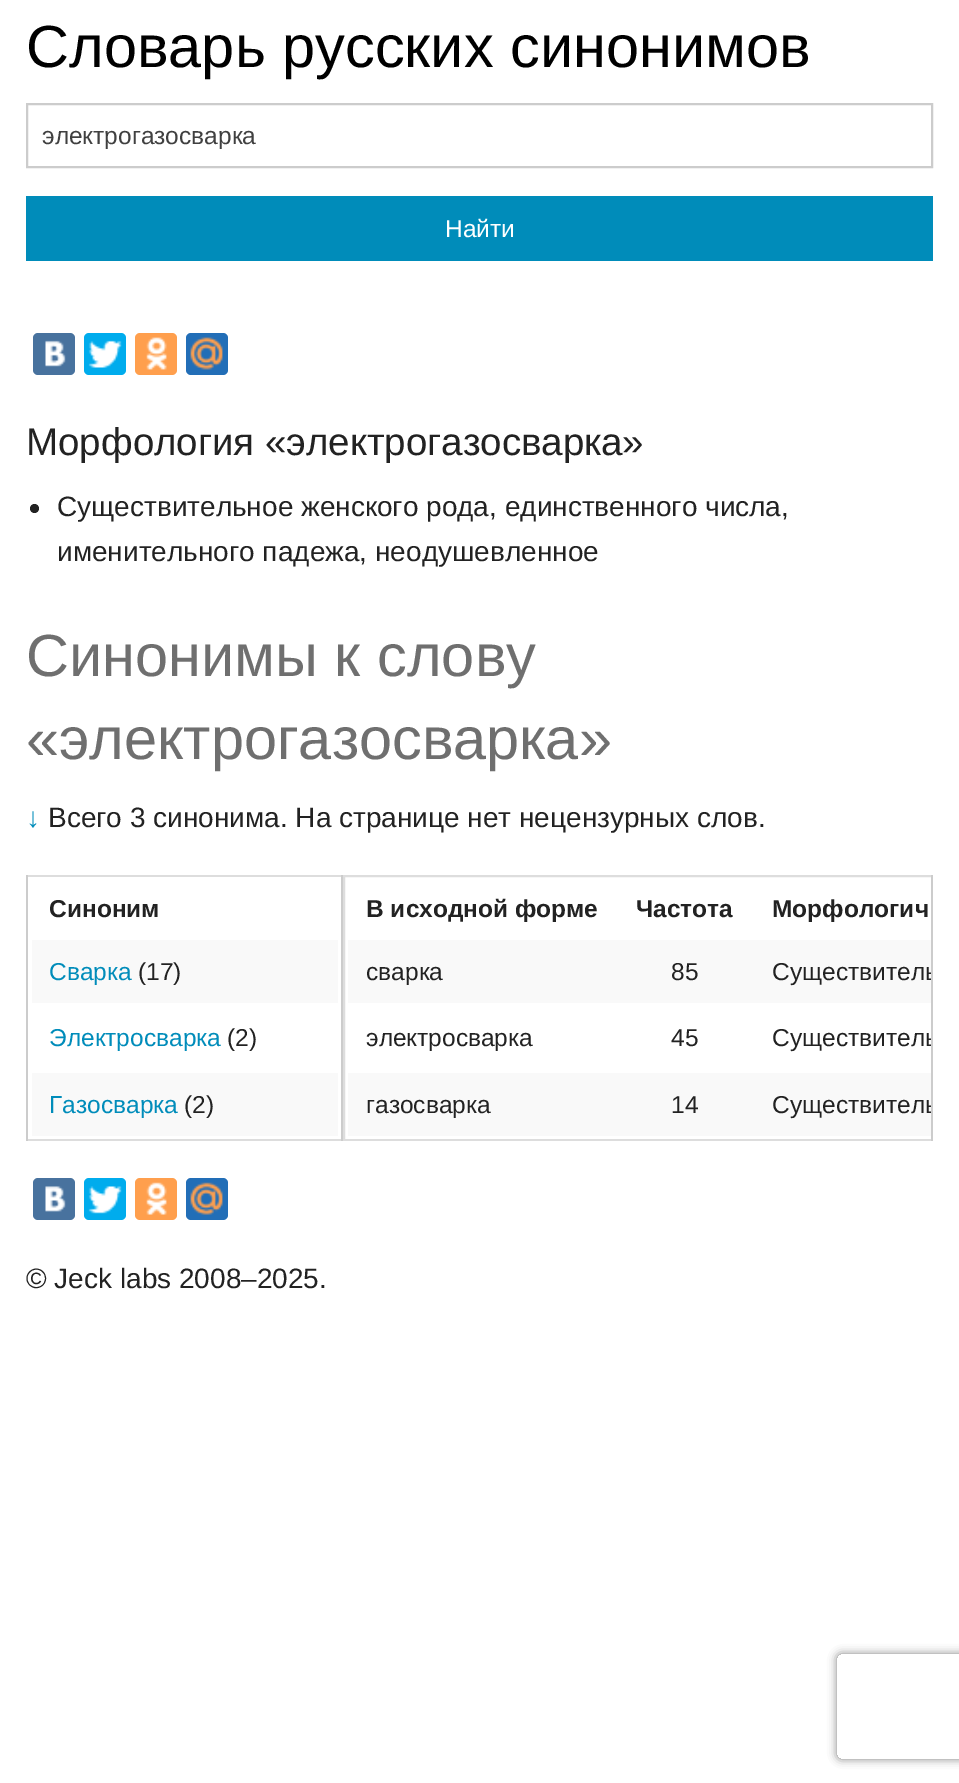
%!PS-Adobe-3.0
%%BoundingBox: 0 0 959 1783
%%LanguageLevel: 3
%%Pages: 1
%%EndComments
%%BeginProlog
/setink { dup -16 bitshift 255 div exch dup -8 bitshift 255 and 255 div exch 255 and 255 div setrgbcolor } def
/usefont { [ exch dup neg 0 0 3 -1 roll 0 0 ] selectfont } def
/setalpha { dup .setfillconstantalpha .setstrokeconstantalpha } def
/disc { newpath 0 360 arc closepath } def
/rrect { 5 dict begin { /r /h /w /y /x } { exch def } forall
  x r add y moveto x w add y 2 copy h add r arct x w add y h add x 1 index r arct
  x y h add x y r arct x y 2 copy exch w add exch r arct closepath end } def
/softshadow { 12 dict begin { /a /b /q /h /w /y /x } { exch def } forall gsave /was 0 def
  9 -2 -9 { dup b mul 4 div /e exch def 1 sub .425 mul 2.718 exch exp 1 add a .99 .min exch div /now exch def
    1 1 now sub 1 was sub div sub setalpha /was now def
    w h .min e 2 mul add 0 gt { x e sub y e sub w e 2 mul add h e 2 mul add
      q e add b .6 mul add w h .min 2 div e add .min 0 .max rrect fill } if } for grestore end } def
/drawimage { 5 dict begin { /h /w /y /x /name } { exch def } forall
  gsave x y translate w h scale
  w h 8 [w 0 0 h 0 0] name (r) file false 3 colorimage grestore end } def
%%EndProlog
%%BeginSetup
<< /PageSize [959 1783] /PageUsesTransparency true >> setpagedevice
%%EndSetup
%%Page: 1 1
0 .pushpdf14devicefilter
0 1783 translate 1 -1 scale
4 setmiterlimit
16#FFFFFF setink
0 0 959 1783 rectfill
/LiberationSans-Regular 59.5 usefont
16#000000 setink
26 67 moveto (Словарь русских синонимов) show
16#CCCCCC setink
2 setlinewidth
27 104 905 63 rectstroke
gsave
42 121 875 28 rectclip
/LiberationSans-Regular 24.5 usefont
16#404040 setink
42 144 moveto (электрогазосварка) show
grestore
16#008CBA setink
26 196 907 65 rectfill
/LiberationSans-Regular 24.5 usefont
16#FFFFFF setink
445 237 moveto (Найти) show
16#48729E setink
33 333 42 42 5 rrect fill
(img1.raw) 45 340 21 27 drawimage
16#00ACED setink
84 333 42 42 5 rrect fill
(img2.raw) 88 340 34 28 drawimage
16#FF9F4D setink
135 333 42 42 5 rrect fill
(img3.raw) 146 337 21 33 drawimage
16#226EB7 setink
186 333 42 42 5 rrect fill
(img4.raw) 190 337 33 33 drawimage
/LiberationSans-Regular 38.5 usefont
16#222222 setink
26 455 moveto (Морфология «электрогазосварка») show
34.5 508.5 4.5 disc fill
/LiberationSans-Regular 28 usefont
57 516 moveto (Существительное женского рода, единственного числа,) show
57 561 moveto (именительного падежа, неодушевленное) show
/LiberationSans-Regular 59.5 usefont
16#6F6F6F setink
26 676 moveto (Синонимы к слову) show
26 759 moveto («электрогазосварка») show
/LiberationSans-Regular 28 usefont
16#008CBA setink
26 827 moveto (↓) show
16#222222 setink
48 827 moveto (Всего 3 синонима. На странице нет нецензурных слов.) show
[
    [931 875 2 266 16#CCCCCC]
    [341 875 2 266 16#CCCCCC]
    [26 875 2 266 16#CCCCCC]
    [28 875 313 2 16#DDDDDD]
    [28 1139 313 2 16#DDDDDD]
] { aload pop setink rectfill } forall
/LiberationSans-Bold 24.5 usefont
16#222222 setink
49 917 moveto (Синоним) show
16#F9F9F9 setink
32 940 306 63 rectfill
/LiberationSans-Regular 24.5 usefont
16#008CBA setink
49 980 moveto (Сварка) show
16#222222 setink
138 980 moveto (\(17\)) show
16#008CBA setink
49 1046 moveto (Электросварка) show
16#222222 setink
227 1046 moveto (\(2\)) show
16#F9F9F9 setink
32 1073 306 63 rectfill
16#008CBA setink
49 1113 moveto (Газосварка) show
16#222222 setink
184 1113 moveto (\(2\)) show
gsave
343 875 588 266 rectclip
16#DDDDDD setink
344 876 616 264 rectstroke
grestore
/LiberationSans-Bold 24.5 usefont
[
    [(В исходной форме) 366 917]
    [(Частота) 636 917]
    [(Морфологич) 772 917]
] { aload pop moveto show } forall
16#F9F9F9 setink
348 940 583 63 rectfill
/LiberationSans-Regular 24.5 usefont
16#222222 setink
366 980 moveto (сварка) show
671 980 moveto (85) show
gsave
754 940 177 63 rectclip
772 980 moveto (Существитель) show
grestore
366 1046 moveto (электросварка) show
671 1046 moveto (45) show
gsave
754 1006 177 63 rectclip
772 1046 moveto (Существитель) show
grestore
16#F9F9F9 setink
348 1073 583 63 rectfill
16#222222 setink
366 1113 moveto (газосварка) show
671 1113 moveto (14) show
gsave
754 1073 177 63 rectclip
772 1113 moveto (Существитель) show
grestore
16#48729E setink
33 1178 42 42 5 rrect fill
(img5.raw) 45 1186 21 26 drawimage
16#00ACED setink
84 1178 42 42 5 rrect fill
(img6.raw) 88 1186 34 28 drawimage
16#FF9F4D setink
135 1178 42 42 5 rrect fill
(img7.raw) 146 1182 21 33 drawimage
16#226EB7 setink
186 1178 42 42 5 rrect fill
(img8.raw) 190 1182 33 33 drawimage
/LiberationSans-Regular 28 usefont
16#222222 setink
26 1288 moveto (© Jeck labs 2008–2025.) show
gsave
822 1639 moveto 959 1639 lineto 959 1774 lineto 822 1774 lineto closepath 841 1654 moveto 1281 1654 lineto 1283 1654 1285 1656 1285 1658 curveto 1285 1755 lineto 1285 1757 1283 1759 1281 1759 curveto 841 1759 lineto 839 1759 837 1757 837 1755 curveto 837 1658 lineto 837 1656 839 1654 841 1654 curveto closepath eoclip newpath
16#808080 setink
837 1654 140 105 4 4.5 1 softshadow
grestore
.poppdf14devicefilter showpage
%%EOF
